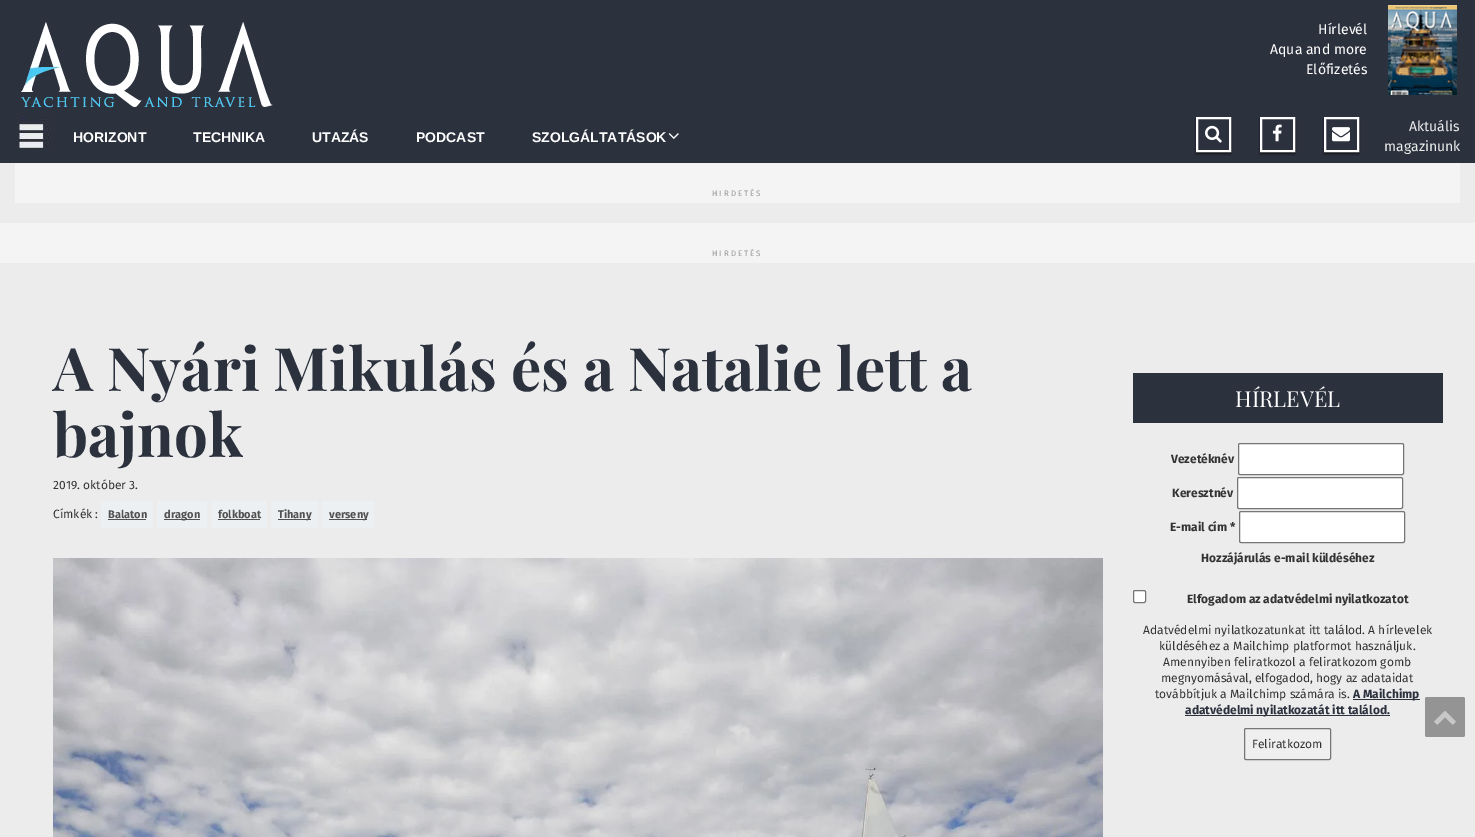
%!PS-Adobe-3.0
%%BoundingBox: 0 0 1475 837
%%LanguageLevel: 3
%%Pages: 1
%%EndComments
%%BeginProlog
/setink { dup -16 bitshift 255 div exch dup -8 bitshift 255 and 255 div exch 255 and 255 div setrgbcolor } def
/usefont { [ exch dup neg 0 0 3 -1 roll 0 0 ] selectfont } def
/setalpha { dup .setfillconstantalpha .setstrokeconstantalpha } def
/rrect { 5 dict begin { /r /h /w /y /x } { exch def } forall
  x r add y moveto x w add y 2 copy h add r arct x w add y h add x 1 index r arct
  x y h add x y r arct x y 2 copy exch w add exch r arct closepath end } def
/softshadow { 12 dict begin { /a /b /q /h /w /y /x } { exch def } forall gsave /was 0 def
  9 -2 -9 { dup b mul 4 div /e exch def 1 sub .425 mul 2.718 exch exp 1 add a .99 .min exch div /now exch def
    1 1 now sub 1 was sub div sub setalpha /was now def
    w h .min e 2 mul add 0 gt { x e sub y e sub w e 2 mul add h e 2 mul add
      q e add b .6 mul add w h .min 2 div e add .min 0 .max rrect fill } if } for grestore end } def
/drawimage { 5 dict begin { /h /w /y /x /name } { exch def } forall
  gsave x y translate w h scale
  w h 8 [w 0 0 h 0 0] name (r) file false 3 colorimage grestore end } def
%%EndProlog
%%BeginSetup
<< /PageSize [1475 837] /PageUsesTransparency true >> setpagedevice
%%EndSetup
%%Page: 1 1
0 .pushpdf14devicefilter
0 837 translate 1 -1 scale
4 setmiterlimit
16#ECECEC setink
0 0 1475 837 rectfill
16#2C313E setink
0 0 1475 163 rectfill
(img1.raw) 21 22 252 86 drawimage
/FiraSans-Regular 14 usefont
16#FFFFFF setink
[
    [(Hírlevél) 1318 34]
    [(Aqua and more) 1270 54]
    [(Előfizetés) 1306 74]
] { aload pop moveto show } forall
(img2.raw) 1388 5 69 90 drawimage
(img3.raw) 18 117 32 32 drawimage
/LiberationSans-Bold 14 usefont
[
    [(HORIZONT) 73 142]
    [(TECHNIKA) 193 142]
    [(UTAZÁS) 312 142]
    [(PODCAST) 416 142]
    [(SZOLGÁLTATÁSOK) 532 142]
] { aload pop moveto show } forall
(img4.raw) 668 133 11 6 drawimage
gsave
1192 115 moveto 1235 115 lineto 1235 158 lineto 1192 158 lineto closepath 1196 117 moveto 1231 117 lineto 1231 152 lineto 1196 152 lineto closepath eoclip newpath
16#000000 setink
1196 119 35 35 0 1 0.6 softshadow
grestore
2 setlinewidth
1197 118 33 33 rectstroke
(img5.raw) 1205 125 17 18 drawimage
gsave
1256 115 moveto 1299 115 lineto 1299 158 lineto 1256 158 lineto closepath 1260 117 moveto 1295 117 lineto 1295 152 lineto 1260 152 lineto closepath eoclip newpath
16#000000 setink
1260 119 35 35 0 1 0.6 softshadow
grestore
1261 118 33 33 rectstroke
(img6.raw) 1272 124 10 18 drawimage
gsave
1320 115 moveto 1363 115 lineto 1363 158 lineto 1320 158 lineto closepath 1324 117 moveto 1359 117 lineto 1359 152 lineto 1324 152 lineto closepath eoclip newpath
16#000000 setink
1324 119 35 35 0 1 0.6 softshadow
grestore
1325 118 33 33 rectstroke
(img7.raw) 1332 127 18 15 drawimage
/FiraSans-Regular 14 usefont
16#ECECEC setink
1409 131 moveto (Aktuális) show
1384 151 moveto (magazinunk) show
16#F4F4F4 setink
15 163 1445 40 rectfill
/FiraSans-Regular 8 usefont
16#969696 setink
712 196 moveto 2 0 (HIRDETÉS) ashow
16#F4F4F4 setink
0 223 1475 40 rectfill
16#969696 setink
712 256 moveto 2 0 (HIRDETÉS) ashow
/PlayfairDisplay-Bold 60 usefont
16#2C313E setink
53 391 moveto (A Nyári Mikulás és a Natalie lett a) show
53 457 moveto (bajnok) show
/FiraSans-Regular 12 usefont
16#333333 setink
53 489 moveto (2019. október 3.) show
53 518 moveto (Címkék :) show
16#EDF0F2 setink
101 501 52 27 rectfill
/FiraSans-Bold 11 usefont
16#515151 setink
108 518 moveto (Balaton) show
[
    [108 519 38 1 16#515151]
    [157 501 50 27 16#EDF0F2]
    [164 519 36 1 16#515151]
] { aload pop setink rectfill } forall
164 518 moveto (dragon) show
16#EDF0F2 setink
211 501 56 27 rectfill
16#515151 setink
218 518 moveto (folkboat) show
[
    [218 519 42 1 16#515151]
    [271 501 47 27 16#EDF0F2]
    [278 519 33 1 16#515151]
] { aload pop setink rectfill } forall
278 518 moveto (Tihany) show
16#EDF0F2 setink
322 501 52 27 rectfill
16#515151 setink
329 519 38 1 rectfill
329 518 moveto (verseny) show
(img8.raw) 53 558 1050 279 drawimage
16#2C313E setink
1133 373 310 50 rectfill
/PlayfairDisplay-Regular 22 usefont
16#FFFFFF setink
1235 407 moveto (HÍRLEVÉL) show
/FiraSans-Bold 12 usefont
16#333333 setink
1171 463 moveto (Vezetéknév) show
16#FFFFFF setink
1238.5 443.5 165 31 1.5 rrect gsave fill grestore
16#767676 setink
1 setlinewidth
stroke
16#333333 setink
1172 497 moveto (Keresztnév) show
16#FFFFFF setink
1237.5 477.5 165 31 1.5 rrect gsave fill grestore
16#767676 setink
stroke
16#333333 setink
1170 531 moveto (E-mail cím *) show
16#FFFFFF setink
1239.5 511.5 165 31 1.5 rrect gsave fill grestore
16#767676 setink
stroke
16#333333 setink
1201 562 moveto (Hozzájárulás e-mail küldéséhez) show
16#FFFFFF setink
1133.5 590.5 12 12 1.5 rrect gsave fill grestore
16#767676 setink
stroke
16#333333 setink
1187 603 moveto (Elfogadom az adatvédelmi nyilatkozatot) show
/FiraSans-Regular 12 usefont
[
    [(Adatvédelmi nyilatkozatunkat itt találod. A hírlevelek) 1143 634]
    [(küldéséhez a Mailchimp platformot használjuk.) 1159 650]
    [(Amennyiben feliratkozol a feliratkozom gomb) 1163 666]
    [(megnyomásával, elfogadod, hogy az adataidat) 1161 682]
    [(továbbítjuk a Mailchimp számára is.) 1155 698]
] { aload pop moveto show } forall
16#2C313E setink
1353 699 67 1 rectfill
/FiraSans-Bold 12 usefont
1353 698 moveto (A Mailchimp) show
1185 715 205 1 rectfill
1185 714 moveto (adatvédelmi nyilatkozatát itt találod.) show
16#EFEFEF setink
1244.5 728.5 86 31 1.5 rrect gsave fill grestore
16#767676 setink
stroke
/FiraSans-Regular 12 usefont
16#333333 setink
1252 748 moveto (Feliratkozom) show
16#949494 setink
1425 697 40 40 2 rrect fill
(img9.raw) 1434 711 22 14 drawimage
.poppdf14devicefilter showpage
%%EOF
